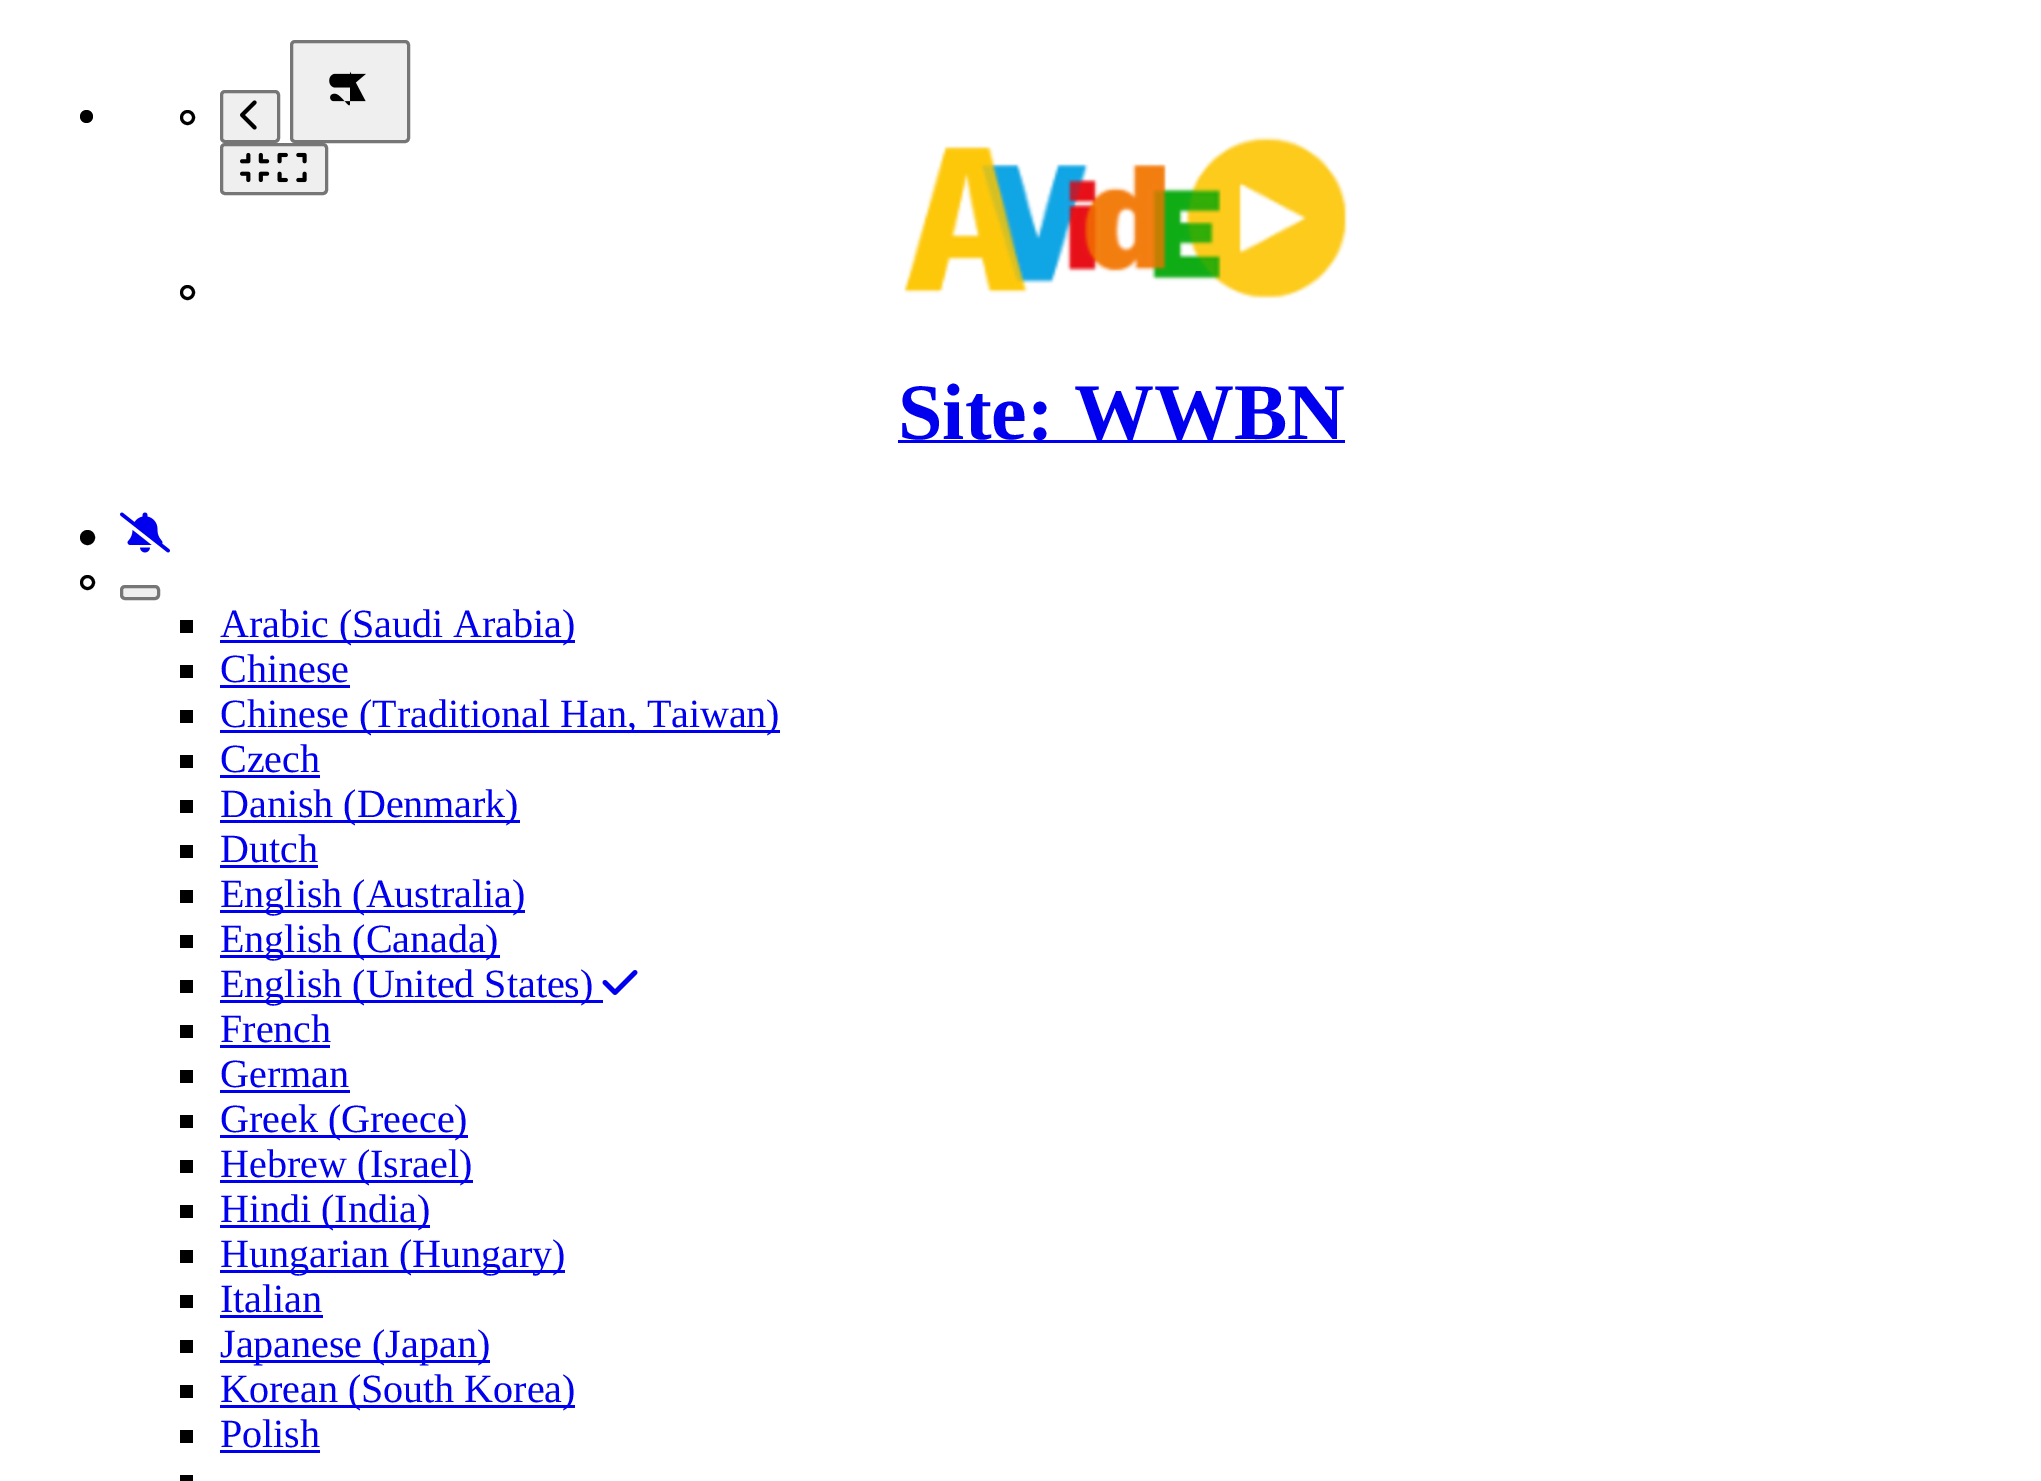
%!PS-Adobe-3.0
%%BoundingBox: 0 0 2041 1481
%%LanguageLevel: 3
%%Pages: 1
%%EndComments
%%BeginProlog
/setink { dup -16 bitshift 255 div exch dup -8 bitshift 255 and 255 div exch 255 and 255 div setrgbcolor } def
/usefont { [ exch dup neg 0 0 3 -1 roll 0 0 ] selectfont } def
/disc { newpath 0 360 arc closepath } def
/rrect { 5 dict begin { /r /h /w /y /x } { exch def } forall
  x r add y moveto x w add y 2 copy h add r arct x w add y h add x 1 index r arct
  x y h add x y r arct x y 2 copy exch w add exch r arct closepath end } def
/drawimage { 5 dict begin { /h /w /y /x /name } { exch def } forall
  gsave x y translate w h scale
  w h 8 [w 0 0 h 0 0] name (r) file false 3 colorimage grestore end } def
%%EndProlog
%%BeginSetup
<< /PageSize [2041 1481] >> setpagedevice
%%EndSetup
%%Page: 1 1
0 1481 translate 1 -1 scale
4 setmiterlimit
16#FFFFFF setink
0 0 2041 1481 rectfill
16#000000 setink
86.5 116.5 6.5 disc fill
3 setlinewidth
187.5 117.5 6 disc stroke
16#EFEFEF setink
221.5 91.5 57 50 3.5 rrect gsave fill grestore
16#767676 setink
stroke
(img1.raw) 240 100 17 30 drawimage
16#EFEFEF setink
291.5 41.5 117 100 3.5 rrect gsave fill grestore
16#767676 setink
stroke
(img2.raw) 329 71 37 35 drawimage
16#EFEFEF setink
221.5 144.5 105 49 3.5 rrect gsave fill grestore
16#767676 setink
stroke
(img3.raw) 240 152 30 31 drawimage
(img4.raw) 277 152 30 31 drawimage
16#000000 setink
187.5 292.5 6 disc stroke
(img5.raw) 903 136 445 163 drawimage
16#0000EE setink
898 440 447 3 rectfill
/LiberationSerif-Bold 80 usefont
898 439 moveto (Site: WWBN) show
16#000000 setink
87.5 537.5 6 disc gsave fill grestore
stroke
(img6.raw) 120 512 50 41 drawimage
87.5 582.5 6 disc stroke
16#EFEFEF setink
121.5 586.5 37 12 3.5 rrect gsave fill grestore
16#767676 setink
stroke
16#000000 setink
180 620 13 13 rectfill
16#0000EE setink
220 640 355 3 rectfill
/LiberationSerif-Regular 40 usefont
220 637 moveto (Arabic \(Saudi Arabia\)) show
16#000000 setink
180 665 13 13 rectfill
16#0000EE setink
220 682 moveto (Chinese) show
[
    [220 685 130 3 16#0000EE]
    [180 710 13 13 16#000000]
    [220 730 560 3 16#0000EE]
] { aload pop setink rectfill } forall
220 727 moveto (Chinese \(Traditional Han, Taiwan\)) show
16#000000 setink
180 755 13 13 rectfill
16#0000EE setink
220 772 moveto (Czech) show
[
    [220 775 100 3 16#0000EE]
    [180 800 13 13 16#000000]
    [220 820 300 3 16#0000EE]
] { aload pop setink rectfill } forall
220 817 moveto (Danish \(Denmark\)) show
16#000000 setink
180 845 13 13 rectfill
16#0000EE setink
220 862 moveto (Dutch) show
[
    [220 865 98 3 16#0000EE]
    [180 890 13 13 16#000000]
    [220 910 305 3 16#0000EE]
] { aload pop setink rectfill } forall
220 907 moveto (English \(Australia\)) show
16#000000 setink
180 935 13 13 rectfill
16#0000EE setink
220 955 280 3 rectfill
220 952 moveto (English \(Canada\)) show
16#000000 setink
180 980 13 13 rectfill
16#0000EE setink
220 1000 383 3 rectfill
220 997 moveto (English \(United States\)) show
(img7.raw) 602 970 36 25 drawimage
16#000000 setink
180 1025 13 13 rectfill
16#0000EE setink
220 1042 moveto (French) show
220 1045 110 3 rectfill
16#000000 setink
180 1070 13 13 rectfill
16#0000EE setink
220 1087 moveto (German) show
[
    [220 1090 130 3 16#0000EE]
    [180 1115 13 13 16#000000]
    [220 1135 248 3 16#0000EE]
] { aload pop setink rectfill } forall
220 1132 moveto (Greek \(Greece\)) show
16#000000 setink
180 1160 13 13 rectfill
16#0000EE setink
220 1180 253 3 rectfill
220 1177 moveto (Hebrew \(Israel\)) show
16#000000 setink
180 1205 13 13 rectfill
16#0000EE setink
220 1225 210 3 rectfill
220 1222 moveto (Hindi \(India\)) show
16#000000 setink
180 1250 13 13 rectfill
16#0000EE setink
220 1270 345 3 rectfill
220 1267 moveto (Hungarian \(Hungary\)) show
16#000000 setink
180 1295 13 13 rectfill
16#0000EE setink
220 1312 moveto (Italian) show
[
    [220 1315 103 3 16#0000EE]
    [180 1340 13 13 16#000000]
    [220 1360 270 3 16#0000EE]
] { aload pop setink rectfill } forall
220 1357 moveto (Japanese \(Japan\)) show
16#000000 setink
180 1385 13 13 rectfill
16#0000EE setink
220 1405 355 3 rectfill
220 1402 moveto (Korean \(South Korea\)) show
16#000000 setink
180 1430 13 13 rectfill
16#0000EE setink
220 1447 moveto (Polish) show
220 1450 100 3 rectfill
16#000000 setink
180 1475 13 6 rectfill
showpage
%%EOF
